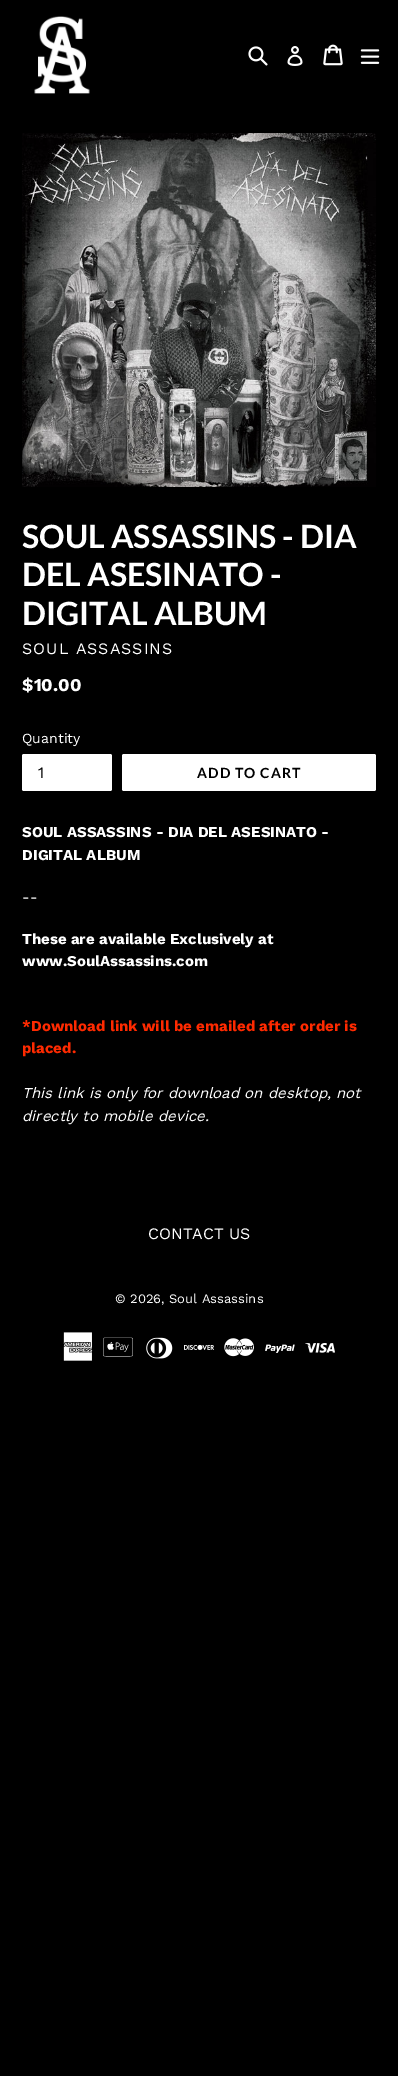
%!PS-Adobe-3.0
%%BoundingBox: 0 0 398 2076
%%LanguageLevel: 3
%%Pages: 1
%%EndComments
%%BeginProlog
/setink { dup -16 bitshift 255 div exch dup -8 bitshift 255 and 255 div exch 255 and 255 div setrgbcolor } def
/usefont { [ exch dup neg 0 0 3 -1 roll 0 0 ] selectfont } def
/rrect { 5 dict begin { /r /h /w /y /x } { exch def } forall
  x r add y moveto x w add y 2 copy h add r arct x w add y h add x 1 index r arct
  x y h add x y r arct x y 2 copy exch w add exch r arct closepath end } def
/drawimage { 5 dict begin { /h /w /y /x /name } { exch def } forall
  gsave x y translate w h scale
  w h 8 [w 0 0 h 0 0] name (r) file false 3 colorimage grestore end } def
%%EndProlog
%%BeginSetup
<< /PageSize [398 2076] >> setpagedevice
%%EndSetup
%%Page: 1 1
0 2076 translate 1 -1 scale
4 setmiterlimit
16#000000 setink
0 0 398 2076 rectfill
(img1.raw) 34 16 56 78 drawimage
(img2.raw) 248 46 20 20 drawimage
(img3.raw) 287 46 16 20 drawimage
(img4.raw) 323 44 20 22 drawimage
(img5.raw) 360 49 20 15 drawimage
(img6.raw) 22 133 354 354 drawimage
/Lato-Bold 32 usefont
16#FFFFFF setink
[
    [(SOUL ASSASSINS - DIA) 22 548]
    [(DEL ASESINATO -) 22 586]
    [(DIGITAL ALBUM) 22 625]
] { aload pop moveto show } forall
/WorkSans-Regular 16 usefont
22 654 moveto 1 0 (SOUL ASSASSINS) ashow
/WorkSans-Bold 18 usefont
22 691 moveto ($10.00) show
/WorkSans-Regular 14 usefont
22 743 moveto (Quantity) show
22 754 90 37 2 rrect fill
/WorkSans-Regular 16 usefont
16#000000 setink
38 778 moveto (1) show
16#FFFFFF setink
122 754 254 37 2 rrect fill
/Lato-Bold 14 usefont
16#000000 setink
197 778 moveto 1.1 0 (ADD TO CART) ashow
/WorkSans-Bold 15 usefont
16#FFFFFF setink
22 837 moveto (SOUL ASSASSINS - DIA DEL ASESINATO -) show
22 860 moveto (DIGITAL ALBUM) show
/WorkSans-Regular 15 usefont
22 902 moveto (--) show
/WorkSans-Bold 15 usefont
22 944 moveto (These are available Exclusively at) show
22 966 moveto (www.SoulAssassins.com) show
16#FF2A00 setink
22 1031 moveto (*Download link will be emailed after order is) show
22 1053 moveto (placed.) show
/WorkSans-Italic 15 usefont
16#FFFFFF setink
22 1098 moveto (This link is only for download on desktop, not) show
22 1121 moveto (directly to mobile device.) show
/WorkSans-Regular 16 usefont
148 1239 moveto (CONTACT US) show
/WorkSans-Regular 13 usefont
115 1303 moveto (© 2026, Soul Assassins) show
(img7.raw) 63 1332 30 29 drawimage
(img8.raw) 103 1337 30 20 drawimage
(img9.raw) 146 1337 27 22 drawimage
(img10.raw) 184 1344 30 6 drawimage
(img11.raw) 224 1338 30 19 drawimage
(img12.raw) 265 1344 30 9 drawimage
(img13.raw) 305 1343 30 10 drawimage
showpage
%%EOF
